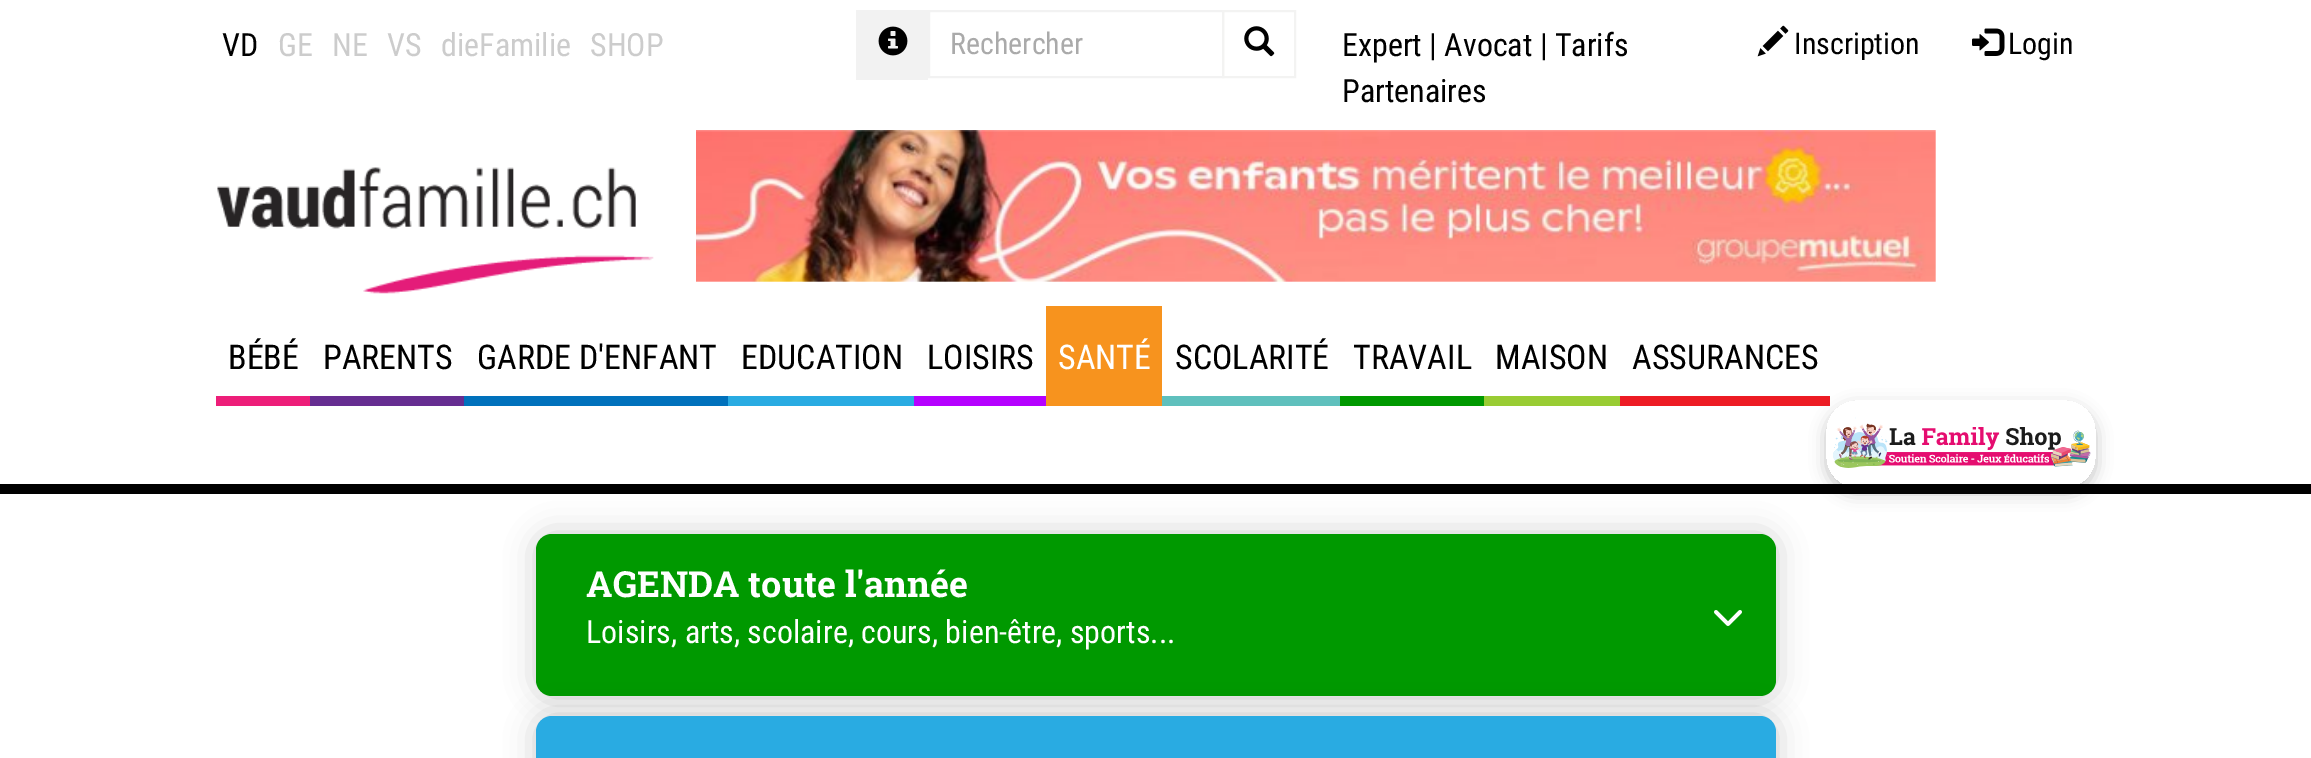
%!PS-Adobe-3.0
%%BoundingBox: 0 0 2311 758
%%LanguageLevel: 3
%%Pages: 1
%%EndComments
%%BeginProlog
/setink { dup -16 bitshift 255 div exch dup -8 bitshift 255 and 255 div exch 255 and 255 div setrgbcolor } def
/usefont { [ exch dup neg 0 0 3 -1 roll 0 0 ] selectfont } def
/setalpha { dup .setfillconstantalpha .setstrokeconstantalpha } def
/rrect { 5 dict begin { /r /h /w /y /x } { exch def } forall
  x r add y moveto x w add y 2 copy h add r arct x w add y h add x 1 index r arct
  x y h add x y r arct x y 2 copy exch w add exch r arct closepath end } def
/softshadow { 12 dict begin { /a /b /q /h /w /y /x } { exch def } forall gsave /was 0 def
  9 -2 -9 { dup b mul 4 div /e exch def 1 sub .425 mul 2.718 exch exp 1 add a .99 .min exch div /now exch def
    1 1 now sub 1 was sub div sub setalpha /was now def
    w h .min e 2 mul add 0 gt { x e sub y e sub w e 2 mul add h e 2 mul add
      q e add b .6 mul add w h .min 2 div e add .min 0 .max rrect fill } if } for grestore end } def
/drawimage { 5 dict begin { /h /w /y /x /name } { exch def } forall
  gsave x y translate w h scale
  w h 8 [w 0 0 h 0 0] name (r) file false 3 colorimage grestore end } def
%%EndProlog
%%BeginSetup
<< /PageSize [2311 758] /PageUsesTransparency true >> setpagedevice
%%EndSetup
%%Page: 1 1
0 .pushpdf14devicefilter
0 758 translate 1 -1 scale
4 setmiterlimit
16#FFFFFF setink
0 0 2311 758 rectfill
/RobotoCondensed-Regular 32 usefont
16#000000 setink
222 56 moveto (VD) show
16#CCCCCC setink
[
    [(GE) 278 56]
    [(NE) 332 56]
    [(VS) 387 56]
    [(dieFamilie) 441 56]
    [(SHOP) 590 56]
] { aload pop moveto show } forall
16#F2F2F2 setink
856 10 72 70 rectfill
(img1.raw) 878 26 30 30 drawimage
2 setlinewidth
929 11 294 66 rectstroke
/RobotoCondensed-Regular 30 usefont
16#AAAAAA setink
950 54 moveto (Rechercher) show
16#F3F3F2 setink
1223 11 72 66 rectstroke
(img2.raw) 1244 26 31 31 drawimage
/RobotoCondensed-Regular 32 usefont
16#000000 setink
1342 56 moveto (Expert | Avocat | Tarifs) show
1342 102 moveto (Partenaires) show
(img3.raw) 1757 25 32 32 drawimage
/RobotoCondensed-Regular 30 usefont
1794 54 moveto (Inscription) show
(img4.raw) 1972 28 33 28 drawimage
2008 54 moveto (Login) show
(img5.raw) 217 167 437 127 drawimage
(img6.raw) 696 130 1240 152 drawimage
16#ED1E79 setink
216 396 94 10 rectfill
/RobotoCondensed-Regular 34 usefont
16#000000 setink
228 369 moveto (BÉBÉ) show
16#662D91 setink
310 396 154 10 rectfill
16#000000 setink
323 369 moveto (PARENTS) show
16#0071BC setink
464 396 264 10 rectfill
16#000000 setink
477 369 moveto (GARDE D'ENFANT) show
16#29ABE2 setink
728 396 186 10 rectfill
16#000000 setink
741 369 moveto (EDUCATION) show
16#B500FF setink
914 396 132 10 rectfill
16#000000 setink
927 369 moveto (LOISIRS) show
16#F7931E setink
1046 306 116 100 rectfill
16#FFFFFF setink
1058 369 moveto (SANTÉ) show
16#5FC0BD setink
1162 396 178 10 rectfill
16#000000 setink
1175 369 moveto (SCOLARITÉ) show
16#009900 setink
1340 396 144 10 rectfill
16#000000 setink
1353 369 moveto (TRAVAIL) show
16#99CC33 setink
1484 396 136 10 rectfill
16#000000 setink
1495 369 moveto (MAISON) show
16#ED1C24 setink
1620 396 210 10 rectfill
16#000000 setink
1632 369 moveto (ASSURANCES) show
0 484 2311 10 rectfill
gsave
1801 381 moveto 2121 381 lineto 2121 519 lineto 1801 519 lineto closepath 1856 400 moveto 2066 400 lineto 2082.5 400 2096 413.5 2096 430 curveto 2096 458 lineto 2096 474.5 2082.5 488 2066 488 curveto 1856 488 lineto 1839.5 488 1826 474.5 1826 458 curveto 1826 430 lineto 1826 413.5 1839.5 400 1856 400 curveto closepath eoclip newpath
1826 406 270 88 30 8 0.24 softshadow
grestore
(img7.raw) 1833 417 258 51 drawimage
536 534 1240 162 16 15 0.2 softshadow
16#009900 setink
536 534 1240 162 16 rrect fill
/RobotoSlab-Bold 36 usefont
16#FFFFFF setink
586 597 moveto (AGENDA toute l'année) show
/RobotoCondensed-Regular 32 usefont
586 643 moveto (Loisirs, arts, scolaire, cours, bien-être, sports...) show
(img8.raw) 1714 610 28 16 drawimage
16#000000 setink
536 716 1240 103 16 15 0.2 softshadow
16#29ABE2 setink
536 716 1240 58 16 rrect fill
.poppdf14devicefilter showpage
%%EOF
